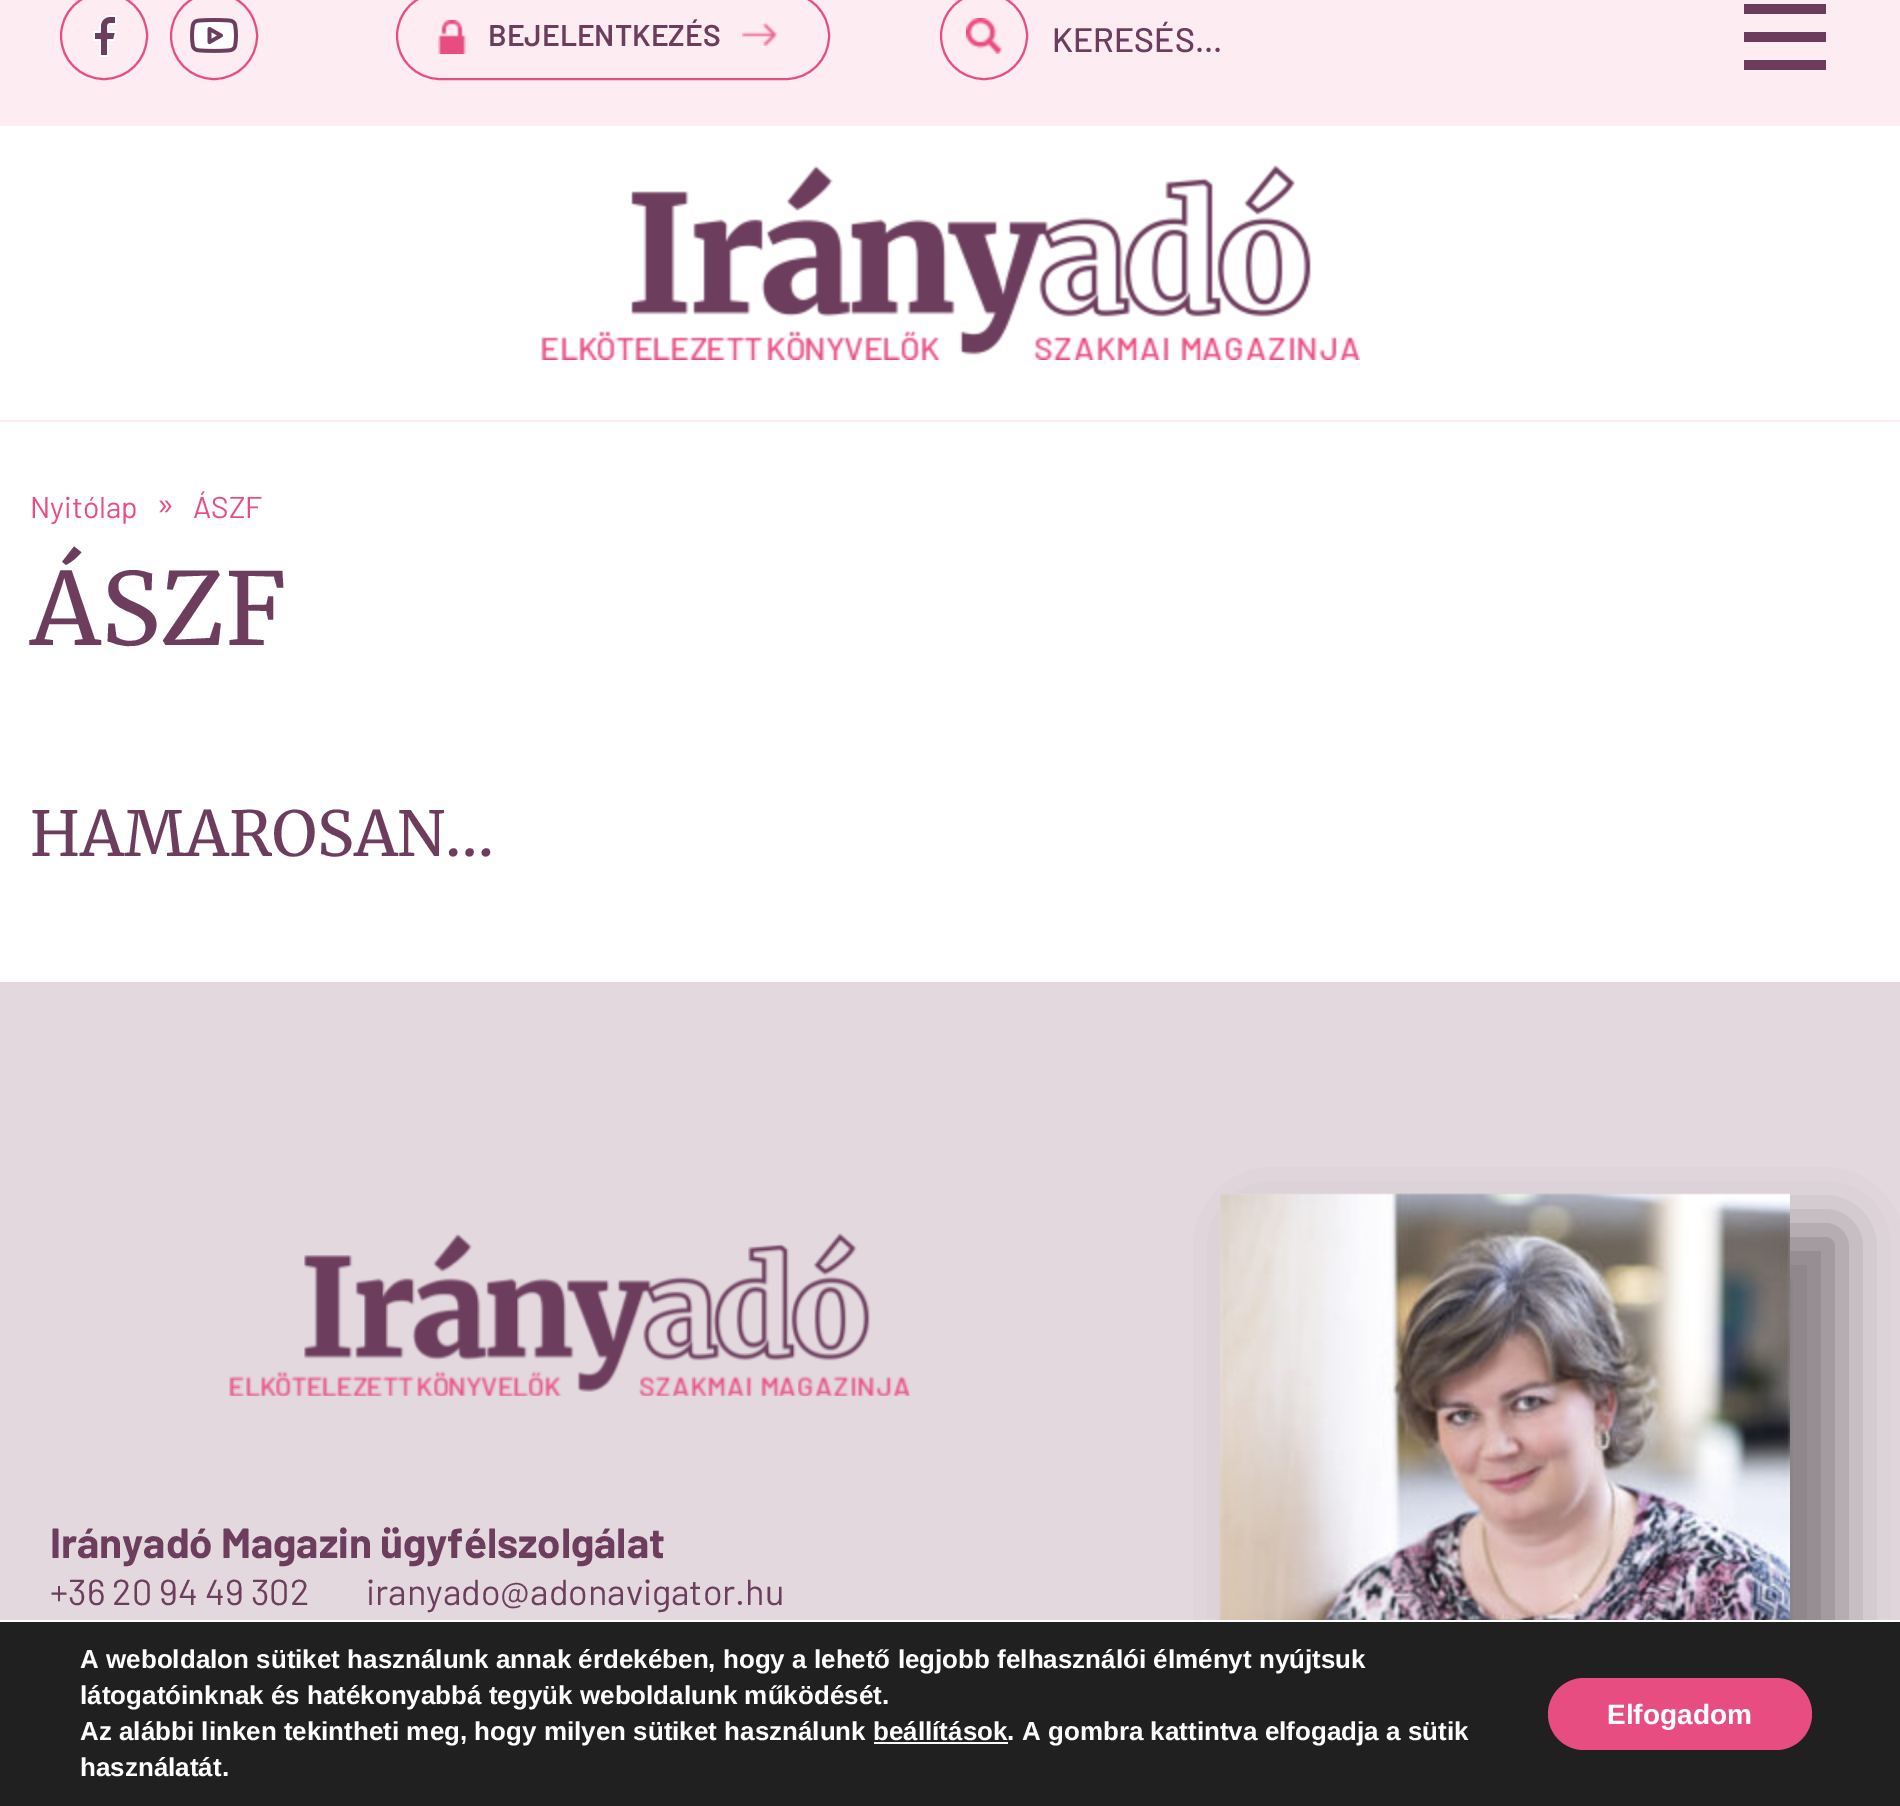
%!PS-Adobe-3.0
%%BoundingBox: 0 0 1900 1806
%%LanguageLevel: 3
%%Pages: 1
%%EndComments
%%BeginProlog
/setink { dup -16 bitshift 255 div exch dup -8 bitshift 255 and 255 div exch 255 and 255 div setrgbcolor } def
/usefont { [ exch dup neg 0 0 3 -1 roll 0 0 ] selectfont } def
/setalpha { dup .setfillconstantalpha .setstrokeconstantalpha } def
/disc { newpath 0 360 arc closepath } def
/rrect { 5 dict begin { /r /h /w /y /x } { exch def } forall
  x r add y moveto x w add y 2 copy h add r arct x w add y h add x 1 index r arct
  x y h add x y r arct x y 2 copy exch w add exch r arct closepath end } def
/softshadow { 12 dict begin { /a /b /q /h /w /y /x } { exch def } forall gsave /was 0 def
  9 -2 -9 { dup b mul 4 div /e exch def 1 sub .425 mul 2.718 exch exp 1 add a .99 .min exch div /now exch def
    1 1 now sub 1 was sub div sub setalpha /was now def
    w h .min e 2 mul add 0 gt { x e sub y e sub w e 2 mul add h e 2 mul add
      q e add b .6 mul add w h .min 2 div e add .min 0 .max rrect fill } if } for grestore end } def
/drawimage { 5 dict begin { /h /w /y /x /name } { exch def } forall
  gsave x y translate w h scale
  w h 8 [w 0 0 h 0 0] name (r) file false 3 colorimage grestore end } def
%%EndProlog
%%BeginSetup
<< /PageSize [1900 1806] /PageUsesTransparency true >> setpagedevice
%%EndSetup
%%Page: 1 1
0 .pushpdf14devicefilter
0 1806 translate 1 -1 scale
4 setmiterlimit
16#FFFFFF setink
0 0 1900 1806 rectfill
16#FDECF2 setink
0 0 1900 422 rectfill
16#E84D81 setink
2 setlinewidth
104 36 43 disc stroke
(img1.raw) 93 15 24 42 drawimage
214 36 43 disc stroke
(img2.raw) 190 18 48 35 drawimage
[
    [0 126 1900 294 16#FFFFFF]
    [1744 32 82 10 16#6D3C5C]
    [1744 4 82 10 16#6D3C5C]
    [1744 60 82 10 16#6D3C5C]
] { aload pop setink rectfill } forall
(img3.raw) 541 165 819 195 drawimage
16#E84D81 setink
397 -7 432 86 43 rrect stroke
(img4.raw) 438 20 28 34 drawimage
/Barlow-SemiBold 30 usefont
16#6D3D5D setink
488 46 moveto (BEJELENTKEZÉS) show
(img5.raw) 742 22 35 24 drawimage
(img6.raw) 966 18 36 36 drawimage
16#E84D81 setink
984 36 43 disc stroke
/Barlow-Medium 34 usefont
16#6D3D5D setink
1052 52 moveto (KERESÉS...) show
/Barlow-Regular 30 usefont
16#E84D81 setink
30 518 moveto (Nyitólap) show
/Barlow-Regular 34 usefont
156 516 moveto (») show
/Barlow-Regular 30 usefont
193 518 moveto (ÁSZF) show
/Merriweather-Regular 100 usefont
16#6D3D5D setink
30 645 moveto (ÁSZF) show
/Merriweather-Regular 62 usefont
30 856 moveto (HAMAROSAN…) show
16#E2D8DE setink
0 982 1900 638 rectfill
(img7.raw) 229 1233 681 163 drawimage
/Barlow-Bold 42 usefont
16#6D3D5D setink
50 1558 moveto (Irányadó Magazin ügyfélszolgálat) show
/Barlow-Regular 36 usefont
50 1605 moveto (+36 20 94 49 302) show
366 1605 moveto (iranyado@adonavigator.hu) show
16#000000 setink
1256 1230 586 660 0 28 0.4 softshadow
(img8.raw) 1219 1193 571 427 drawimage
16#202020 setink
0 1622 1900 184 rectfill
16#FFFFFF setink
1201 1620 699 2 rectfill
/LiberationSans-Bold 26 usefont
[
    [(A weboldalon sütiket használunk annak érdekében, hogy a lehető legjobb felhasználói élményt nyújtsuk) 80 1668]
    [(látogatóinknak és hatékonyabbá tegyük weboldalunk működését.) 80 1704]
    [(Az alábbi linken tekintheti meg, hogy milyen sütiket használunk beállítások. A gombra kattintva elfogadja a sütik) 80 1740]
] { aload pop moveto show } forall
874 1742 134 2 rectfill
80 1776 moveto (használatát.) show
16#E84D81 setink
1548 1678 264 72 36 rrect fill
/LiberationSans-Bold 28 usefont
16#FFFFFF setink
1607 1724 moveto (Elfogadom) show
.poppdf14devicefilter showpage
%%EOF
